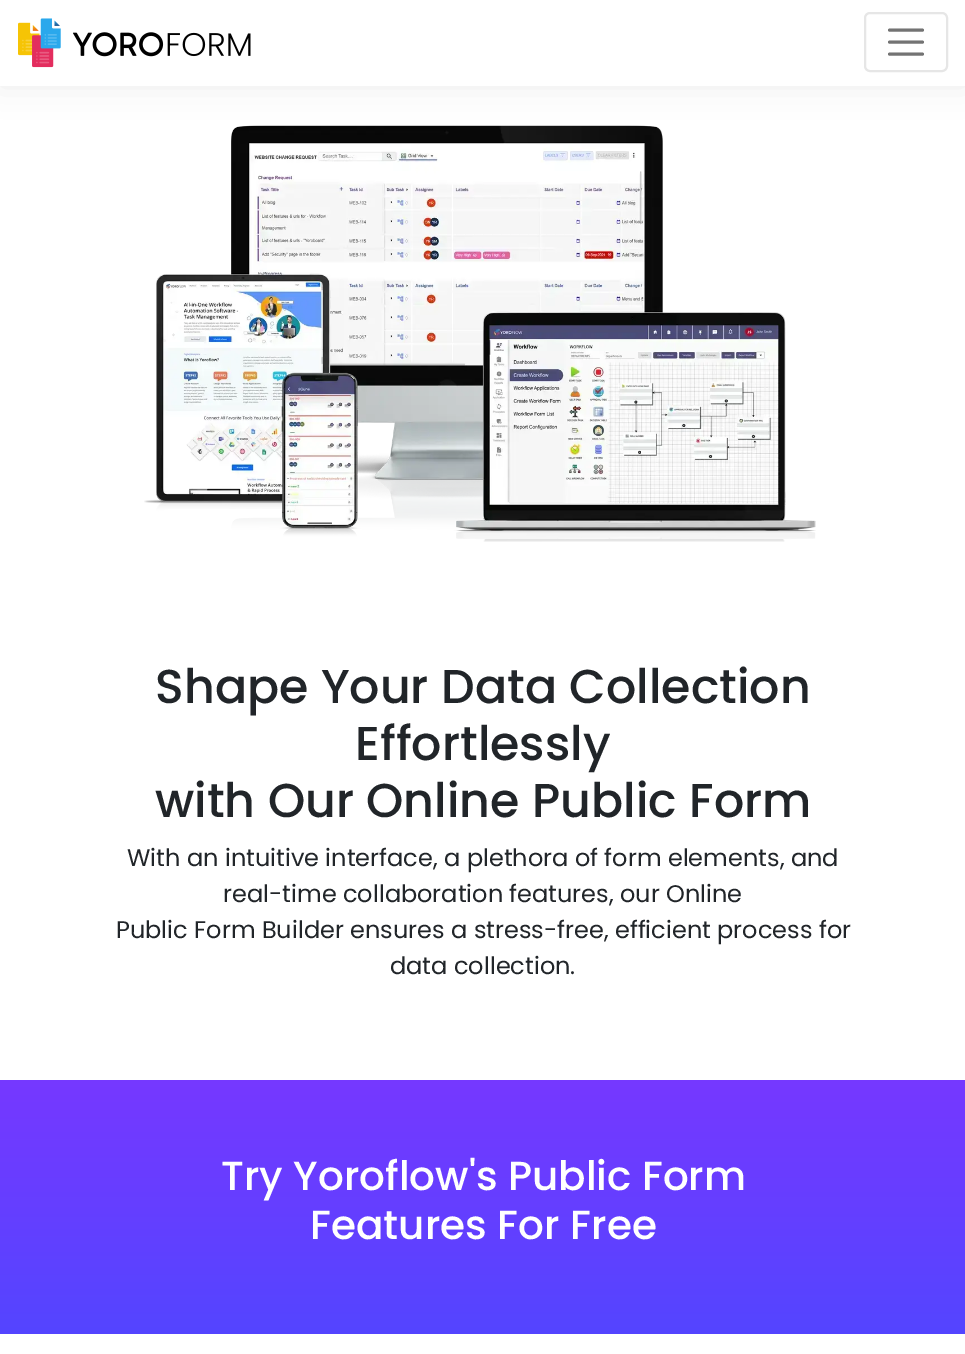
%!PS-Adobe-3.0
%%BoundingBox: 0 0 965 1354
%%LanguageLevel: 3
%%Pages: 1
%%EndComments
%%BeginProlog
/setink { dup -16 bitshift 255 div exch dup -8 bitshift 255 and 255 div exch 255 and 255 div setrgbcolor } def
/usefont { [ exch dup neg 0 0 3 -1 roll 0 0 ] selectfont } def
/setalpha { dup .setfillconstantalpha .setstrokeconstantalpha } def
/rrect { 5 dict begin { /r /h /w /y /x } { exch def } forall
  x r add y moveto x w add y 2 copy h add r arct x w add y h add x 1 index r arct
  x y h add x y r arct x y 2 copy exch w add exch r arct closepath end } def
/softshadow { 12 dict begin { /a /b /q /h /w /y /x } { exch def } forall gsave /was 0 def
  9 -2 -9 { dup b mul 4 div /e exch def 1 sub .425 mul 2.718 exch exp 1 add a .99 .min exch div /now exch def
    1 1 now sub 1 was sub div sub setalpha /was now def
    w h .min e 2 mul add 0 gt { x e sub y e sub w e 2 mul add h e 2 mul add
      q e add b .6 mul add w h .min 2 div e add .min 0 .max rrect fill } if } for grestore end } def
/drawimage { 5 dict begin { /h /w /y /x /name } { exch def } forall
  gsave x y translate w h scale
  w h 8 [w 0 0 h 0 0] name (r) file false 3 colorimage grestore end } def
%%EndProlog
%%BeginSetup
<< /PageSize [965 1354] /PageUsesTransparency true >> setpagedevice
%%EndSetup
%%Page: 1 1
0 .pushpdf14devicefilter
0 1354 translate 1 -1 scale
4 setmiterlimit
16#FFFFFF setink
0 0 965 1354 rectfill
(img2.raw) 144 125 672 417 drawimage
16#000000 setink
0 0 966 86 0 15 0.07 softshadow
16#FFFFFF setink
0 0 965 86 rectfill
(img1.raw) 18 18 233 50 drawimage
16#E6E6E6 setink
2 setlinewidth
865 13 82 58 5 rrect stroke
16#737373 setink
3 setlinewidth
1 setlinecap
889.5 30 moveto 922.5 30 lineto 889.5 42 moveto 922.5 42 lineto 889.5 54 moveto 922.5 54 lineto stroke
/Poppins-Medium 47.5 usefont
16#212529 setink
[
    [(Shape Your Data Collection) 155 703]
    [(Effortlessly) 355 760]
    [(with Our Online Public Form) 155 817]
] { aload pop moveto show } forall
/Poppins-Regular 24 usefont
[
    [(With an intuitive interface, a plethora of form elements, and) 127 866]
    [(real-time collaboration features, our Online) 223 902]
    [(Public Form Builder ensures a stress-free, efficient process for) 116 938]
    [(data collection.) 390 974]
] { aload pop moveto show } forall
gsave 0 1080 moveto 965 1080 lineto 965 1334 lineto 0 1334 lineto closepath clip newpath
<< /ShadingType 2 /ColorSpace /DeviceRGB /Coords [483 1080 483 1334] /Extend [true true] /Function << /FunctionType 2 /Domain [0 1] /C0 [0.463 0.22 1] /C1 [0.329 0.271 1] /N 1 >> >> shfill grestore
/Poppins-Medium 40.5 usefont
16#FFFFFF setink
221 1190 moveto (Try Yoroflow's Public Form) show
310 1239 moveto (Features For Free) show
.poppdf14devicefilter showpage
%%EOF
